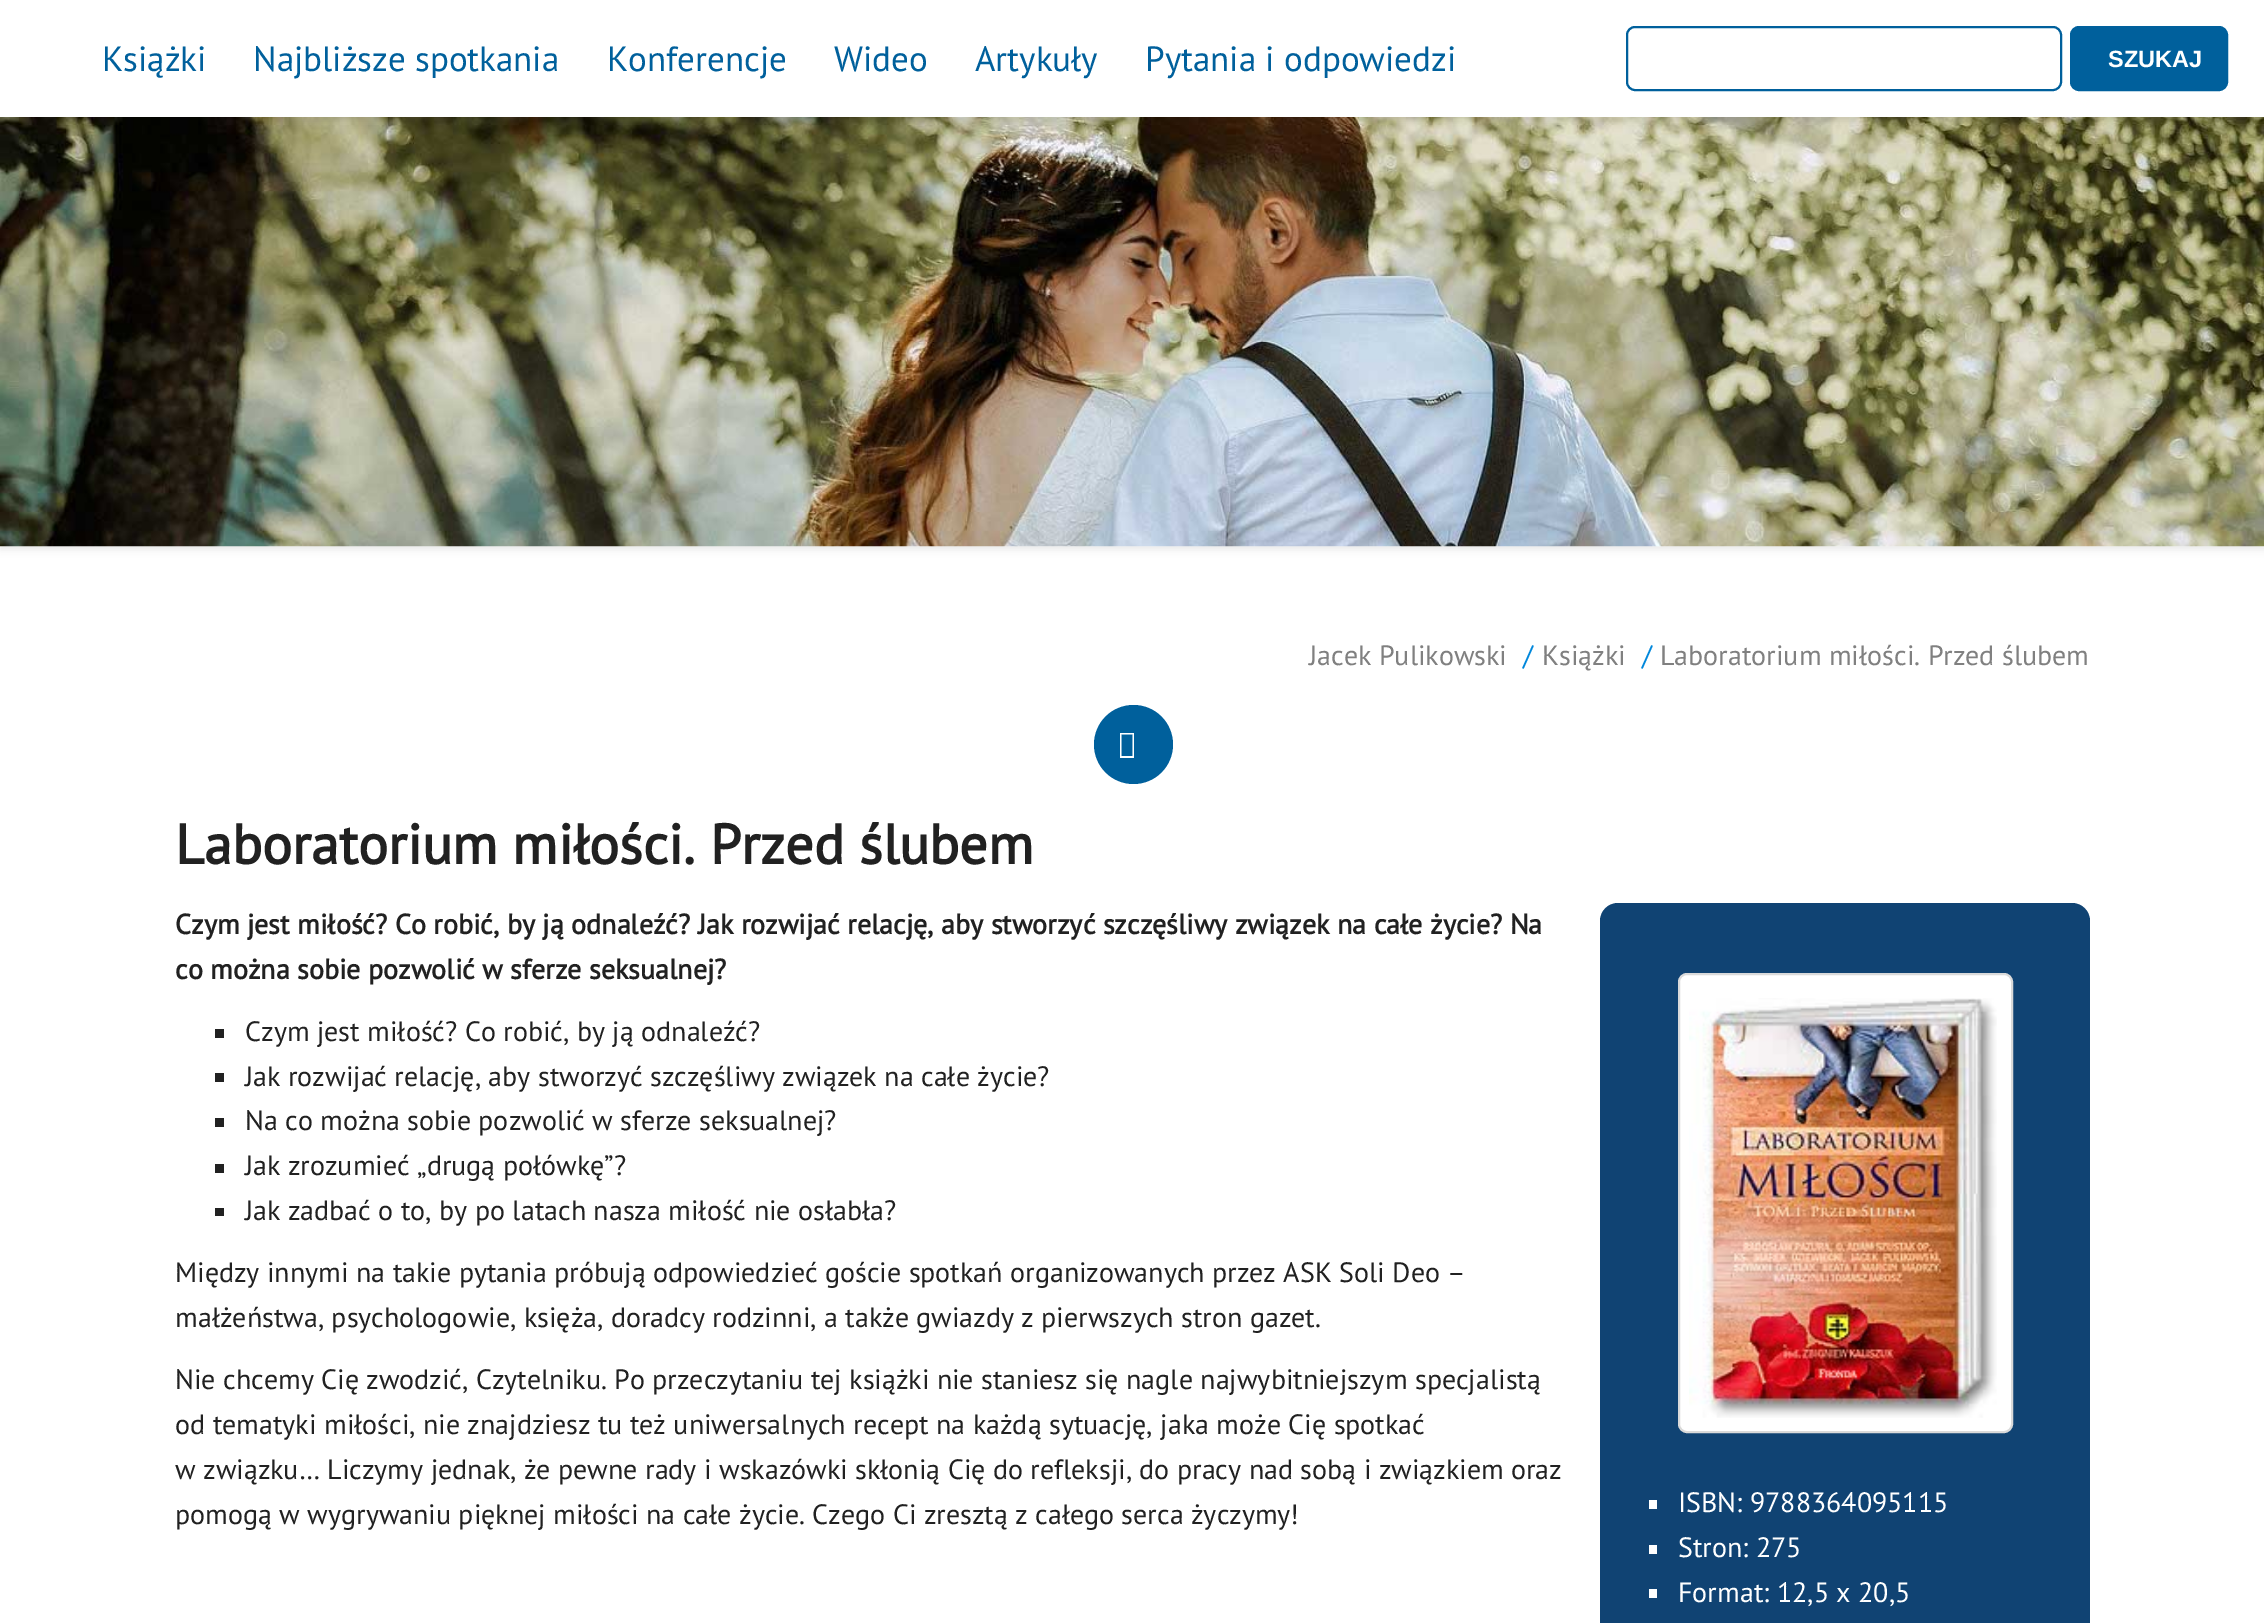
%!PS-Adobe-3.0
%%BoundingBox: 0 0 2264 1623
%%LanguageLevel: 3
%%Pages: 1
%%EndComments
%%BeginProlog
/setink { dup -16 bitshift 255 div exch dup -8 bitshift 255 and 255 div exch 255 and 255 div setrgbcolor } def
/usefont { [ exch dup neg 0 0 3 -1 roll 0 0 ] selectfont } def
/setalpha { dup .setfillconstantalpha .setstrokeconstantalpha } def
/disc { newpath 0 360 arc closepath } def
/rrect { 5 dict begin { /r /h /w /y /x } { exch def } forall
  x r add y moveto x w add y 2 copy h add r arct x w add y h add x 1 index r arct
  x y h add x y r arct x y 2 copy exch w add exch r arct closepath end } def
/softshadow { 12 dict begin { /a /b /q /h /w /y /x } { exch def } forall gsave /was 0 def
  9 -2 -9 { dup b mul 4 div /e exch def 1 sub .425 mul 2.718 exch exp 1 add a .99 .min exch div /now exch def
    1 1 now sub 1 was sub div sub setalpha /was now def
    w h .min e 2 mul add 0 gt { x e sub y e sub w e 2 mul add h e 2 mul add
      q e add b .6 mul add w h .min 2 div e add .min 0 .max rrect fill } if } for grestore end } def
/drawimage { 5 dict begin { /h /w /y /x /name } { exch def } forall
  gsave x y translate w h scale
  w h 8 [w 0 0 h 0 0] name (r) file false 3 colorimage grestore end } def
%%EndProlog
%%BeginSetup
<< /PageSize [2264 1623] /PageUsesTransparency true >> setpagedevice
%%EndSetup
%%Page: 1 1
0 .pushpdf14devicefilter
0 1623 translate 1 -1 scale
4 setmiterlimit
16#FFFFFF setink
0 0 2264 1623 rectfill
16#000000 setink
0 25 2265 525 0 3.5 0.07 softshadow
(img1.raw) 0 117 2264 430 drawimage
0 4 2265 117 0 3.5 0.07 softshadow
16#FFFFFF setink
0 0 2264 117 rectfill
/PTSans-Regular 35 usefont
16#00609C setink
[
    [(Książki) 102 71]
    [(Najbliższe spotkania) 253 71]
    [(Konferencje) 607 71]
    [(Wideo) 834 71]
    [(Artykuły) 975 71]
    [(Pytania i odpowiedzi) 1145 71]
] { aload pop moveto show } forall
2 setlinewidth
1627 27 434 63 8 rrect stroke
2071 27 156 63 8 rrect gsave fill grestore
stroke
/LiberationSans-Bold 23.5 usefont
16#FFFFFF setink
2108 67 moveto (SZUKAJ) show
/PTSans-Regular 28 usefont
16#808080 setink
1309 665 moveto (Jacek Pulikowski) show
16#0087DB setink
1523 665 moveto (/) show
16#808080 setink
1542 665 moveto (Książki) show
16#0087DB setink
1642 665 moveto (/) show
16#808080 setink
1660 665 moveto (Laboratorium miłości. Przed ślubem) show
16#00609C setink
1133.5 744.5 39.5 disc fill
16#FFFFFF setink
1120 758 moveto 1120 733 lineto 1134 733 lineto 1134 758 lineto closepath 1121.5 756 moveto 1132.5 756 lineto 1132.5 734.5 lineto 1121.5 734.5 lineto closepath fill
/PTSans-Bold 56 usefont
16#212121 setink
175 864 moveto (Laboratorium miłości. Przed ślubem) show
/PTSans-Bold 28 usefont
175 934 moveto (Czym jest miłość? Co robić, by ją odnaleźć? Jak rozwijać relację, aby stworzyć szczęśliwy związek na całe życie? Na) show
175 979 moveto (co można sobie pozwolić w sferze seksualnej?) show
215 1029 9 9 rectfill
/PTSans-Regular 28 usefont
245 1041 moveto (Czym jest miłość? Co robić, by ją odnaleźć?) show
215 1073 9 9 rectfill
245 1086 moveto (Jak rozwijać relację, aby stworzyć szczęśliwy związek na całe życie?) show
215 1118 9 9 rectfill
245 1130 moveto (Na co można sobie pozwolić w sferze seksualnej?) show
215 1164 9 9 rectfill
245 1175 moveto (Jak zrozumieć „drugą połówkę”?) show
215 1208 9 8 rectfill
[
    [(Jak zadbać o to, by po latach nasza miłość nie osłabła?) 245 1220]
    [(Między innymi na takie pytania próbują odpowiedzieć goście spotkań organizowanych przez ASK Soli Deo –) 175 1282]
    [(małżeństwa, psychologowie, księża, doradcy rodzinni, a także gwiazdy z pierwszych stron gazet.) 175 1327]
    [(Nie chcemy Cię zwodzić, Czytelniku. Po przeczytaniu tej książki nie staniesz się nagle najwybitniejszym specjalistą) 175 1389]
    [(od tematyki miłości, nie znajdziesz tu też uniwersalnych recept na każdą sytuację, jaka może Cię spotkać) 175 1434]
    [(w związku… Liczymy jednak, że pewne rady i wskazówki skłonią Cię do refleksji, do pracy nad sobą i związkiem oraz) 175 1479]
    [(pomogą w wygrywaniu pięknej miłości na całe życie. Czego Ci zresztą z całego serca życzymy!) 175 1524]
] { aload pop moveto show } forall
16#104373 setink
1600 903 490 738 18 rrect fill
16#FFFFFF setink
1679 974 333 458 8 rrect gsave fill grestore
16#DADADA setink
stroke
(img2.raw) 1689 998 308 420 drawimage
16#FFFFFF setink
1649 1500 8 9 rectfill
1678 1512 moveto (ISBN: 9788364095115) show
1649 1545 8 9 rectfill
1678 1557 moveto (Stron: 275) show
1649 1589 8 9 rectfill
1678 1602 moveto (Format: 12,5 x 20,5) show
.poppdf14devicefilter showpage
%%EOF
